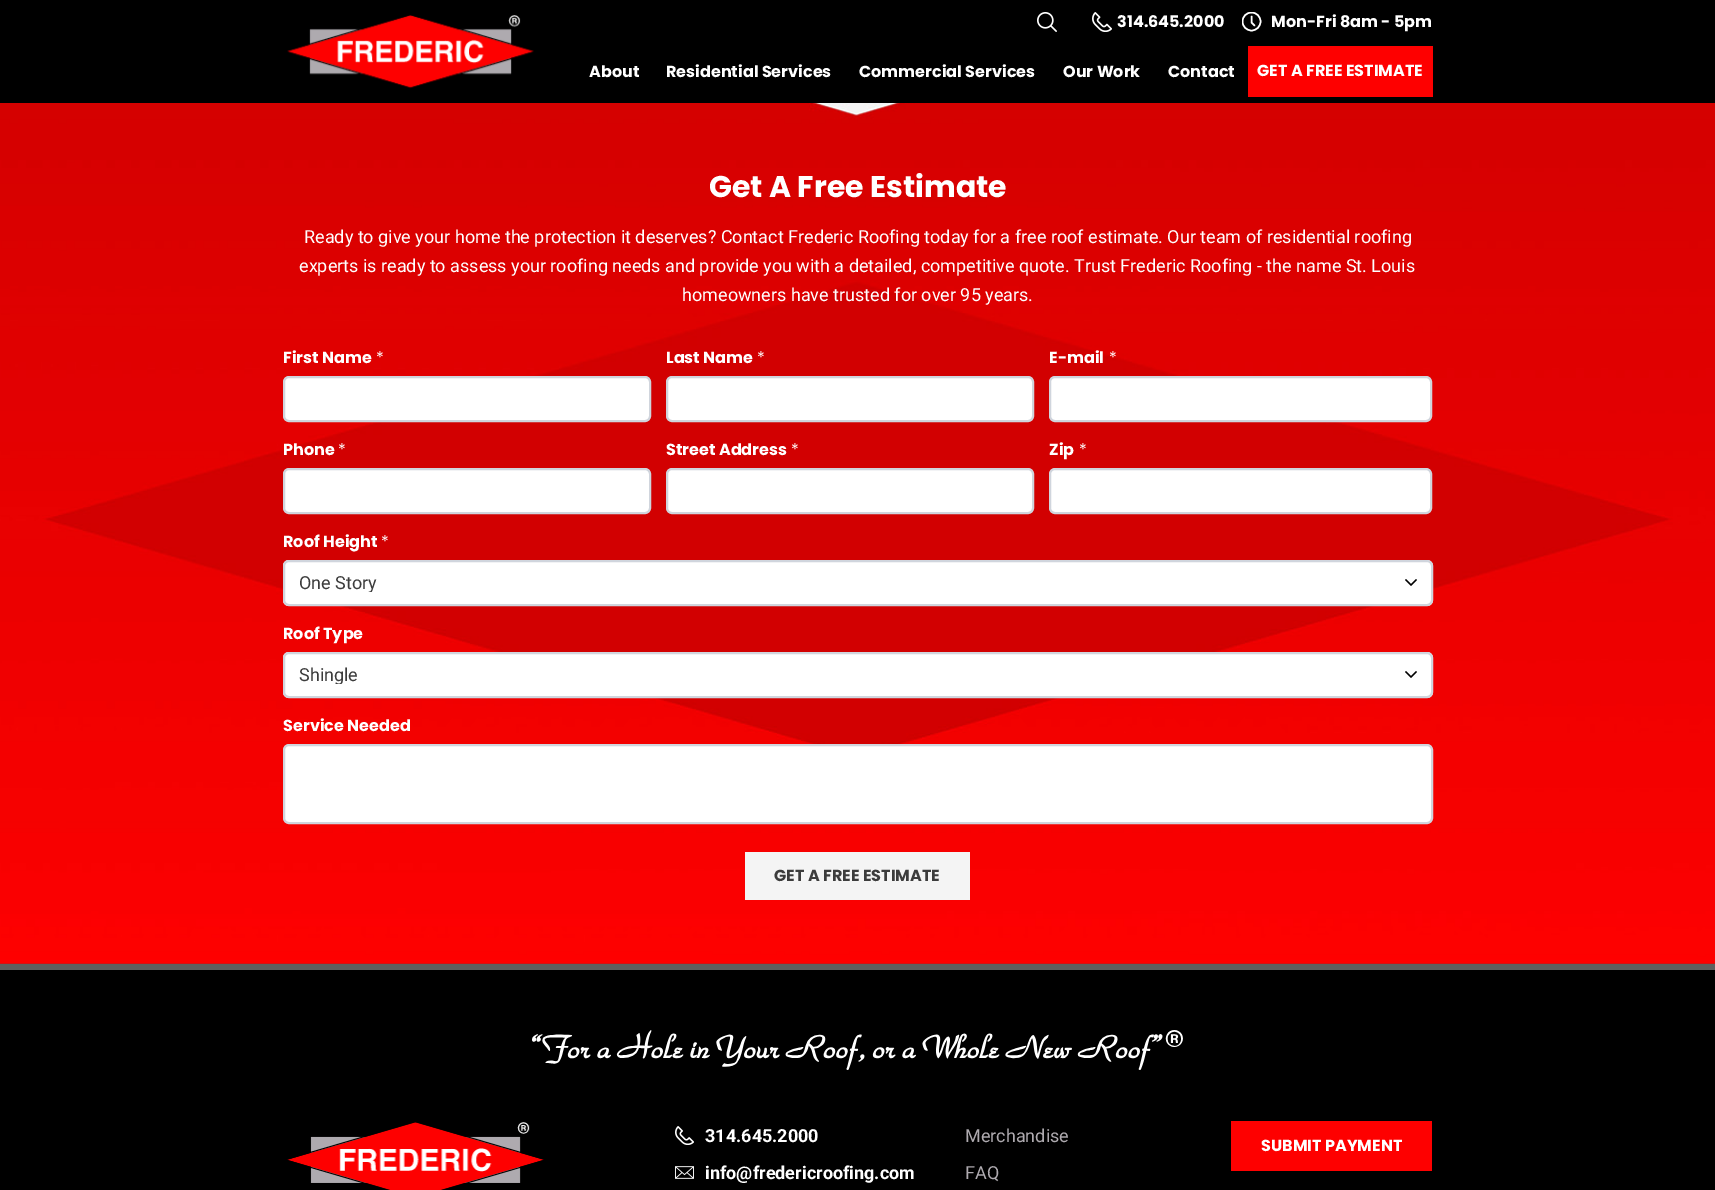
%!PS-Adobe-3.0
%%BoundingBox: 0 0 1715 1190
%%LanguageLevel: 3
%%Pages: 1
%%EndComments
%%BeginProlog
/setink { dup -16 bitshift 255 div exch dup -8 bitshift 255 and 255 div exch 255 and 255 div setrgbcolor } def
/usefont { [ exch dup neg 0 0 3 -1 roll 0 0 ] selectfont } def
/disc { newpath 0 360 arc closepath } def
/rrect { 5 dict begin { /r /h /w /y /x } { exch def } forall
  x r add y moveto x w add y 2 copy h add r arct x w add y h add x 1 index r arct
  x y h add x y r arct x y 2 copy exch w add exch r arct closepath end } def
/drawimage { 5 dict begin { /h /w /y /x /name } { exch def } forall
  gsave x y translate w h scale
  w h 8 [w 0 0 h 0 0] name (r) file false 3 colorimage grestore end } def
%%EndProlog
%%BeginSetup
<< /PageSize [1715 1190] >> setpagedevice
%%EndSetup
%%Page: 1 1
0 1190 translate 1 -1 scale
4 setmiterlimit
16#000000 setink
0 0 1715 1190 rectfill
(img1.raw) 287 15 247 74 drawimage
(img2.raw) 1037 12 20 20 drawimage
(img3.raw) 1092 12 20 20 drawimage
/Poppins-Bold 16 usefont
16#FFFFFF setink
1117 27 moveto (314.645.2000) show
gsave
1242 12 20 20 rectclip
1.5 setlinewidth
1251.5 21.5 9 disc stroke
grestore
1271 27 moveto (Mon-Fri 8am - 5pm) show
1.5 setlinewidth
1 setlinecap
1251.5 16.5 moveto 1251.5 22.5 lineto 1254.5 25.5 lineto stroke
[
    [(About) 589 77]
    [(Residential Services) 666 77]
    [(Commercial Services) 859 77]
    [(Our Work) 1063 77]
    [(Contact) 1168 77]
] { aload pop moveto show } forall
16#FE0000 setink
1248 46 185 51 rectfill
16#FFFFFF setink
1257 76 moveto (GET A FREE ESTIMATE) show
(img4.raw) 0 103 1715 861 drawimage
/Poppins-Bold 30 usefont
709 197 moveto (Get A Free Estimate) show
/Roboto-Regular 18 usefont
[
    [(Ready to give your home the protection it deserves? Contact Frederic Roofing today for a free roof estimate. Our team of residential roofing) 304 243]
    [(experts is ready to assess your roofing needs and provide you with a detailed, competitive quote. Trust Frederic Roofing - the name St. Louis) 299 272]
    [(homeowners have trusted for over 95 years.) 682 301]
] { aload pop moveto show } forall
/Poppins-Bold 16 usefont
283 363 moveto (First Name) show
/Poppins-Regular 16 usefont
376 363 moveto (*) show
284 377 366 44 5 rrect gsave fill grestore
16#D0D5DD setink
2 setlinewidth
0 setlinecap
stroke
/Poppins-Bold 16 usefont
16#FFFFFF setink
666 363 moveto (Last Name) show
/Poppins-Regular 16 usefont
757 363 moveto (*) show
667 377 366 44 5 rrect gsave fill grestore
16#D0D5DD setink
stroke
/Poppins-Bold 16 usefont
16#FFFFFF setink
1049 363 moveto (E-mail) show
/Poppins-Regular 16 usefont
1109 363 moveto (*) show
1050 377 381 44 5 rrect gsave fill grestore
16#D0D5DD setink
stroke
/Poppins-Bold 16 usefont
16#FFFFFF setink
283 455 moveto (Phone) show
/Poppins-Regular 16 usefont
338 455 moveto (*) show
284 469 366 44 5 rrect gsave fill grestore
16#D0D5DD setink
stroke
/Poppins-Bold 16 usefont
16#FFFFFF setink
666 455 moveto (Street Address) show
/Poppins-Regular 16 usefont
791 455 moveto (*) show
667 469 366 44 5 rrect gsave fill grestore
16#D0D5DD setink
stroke
/Poppins-Bold 16 usefont
16#FFFFFF setink
1049 455 moveto (Zip) show
/Poppins-Regular 16 usefont
1079 455 moveto (*) show
1050 469 381 44 5 rrect gsave fill grestore
16#D0D5DD setink
stroke
/Poppins-Bold 16 usefont
16#FFFFFF setink
283 547 moveto (Roof Height) show
/Poppins-Regular 16 usefont
381 547 moveto (*) show
283 560 1150 46 6 rrect fill
(img5.raw) 1405 579 12 7 drawimage
16#D0D5DD setink
284 561 1148 44 5 rrect stroke
gsave
299 574 1118 18 rectclip
/Roboto-Regular 18 usefont
16#3C3C3C setink
299 589 moveto (One Story) show
grestore
/Poppins-Bold 16 usefont
16#FFFFFF setink
283 639 moveto (Roof Type) show
283 652 1150 46 6 rrect fill
(img5.raw) 1405 671 12 7 drawimage
16#D0D5DD setink
284 653 1148 44 5 rrect stroke
gsave
299 666 1118 18 rectclip
/Roboto-Regular 18 usefont
16#3C3C3C setink
299 681 moveto (Shingle) show
grestore
16#FFFFFF setink
283 731 moveto (Service Needed) show
284 745 1148 78 5 rrect gsave fill grestore
16#D0D5DD setink
stroke
16#F4F4F4 setink
745 852 225 48 rectfill
16#3C3C3C setink
774 881 moveto (GET A FREE ESTIMATE) show
16#5F5F5F setink
0 964 1715 6 rectfill
(img6.raw) 532 1030 651 40 drawimage
(img7.raw) 287 1122 257 68 drawimage
(img8.raw) 675 1126 19 19 drawimage
/Roboto-Bold 18 usefont
16#FFFFFF setink
705 1142 moveto (314.645.2000) show
(img9.raw) 675 1166 19 13 drawimage
705 1179 moveto (info@fredericroofing.com) show
/Roboto-Regular 18 usefont
16#AEAAAF setink
965 1142 moveto (Merchandise) show
965 1179 moveto (FAQ) show
16#FE0000 setink
1231 1121 201 50 rectfill
/Poppins-Bold 16 usefont
16#FFFFFF setink
1261 1151 moveto (SUBMIT PAYMENT) show
showpage
%%EOF
